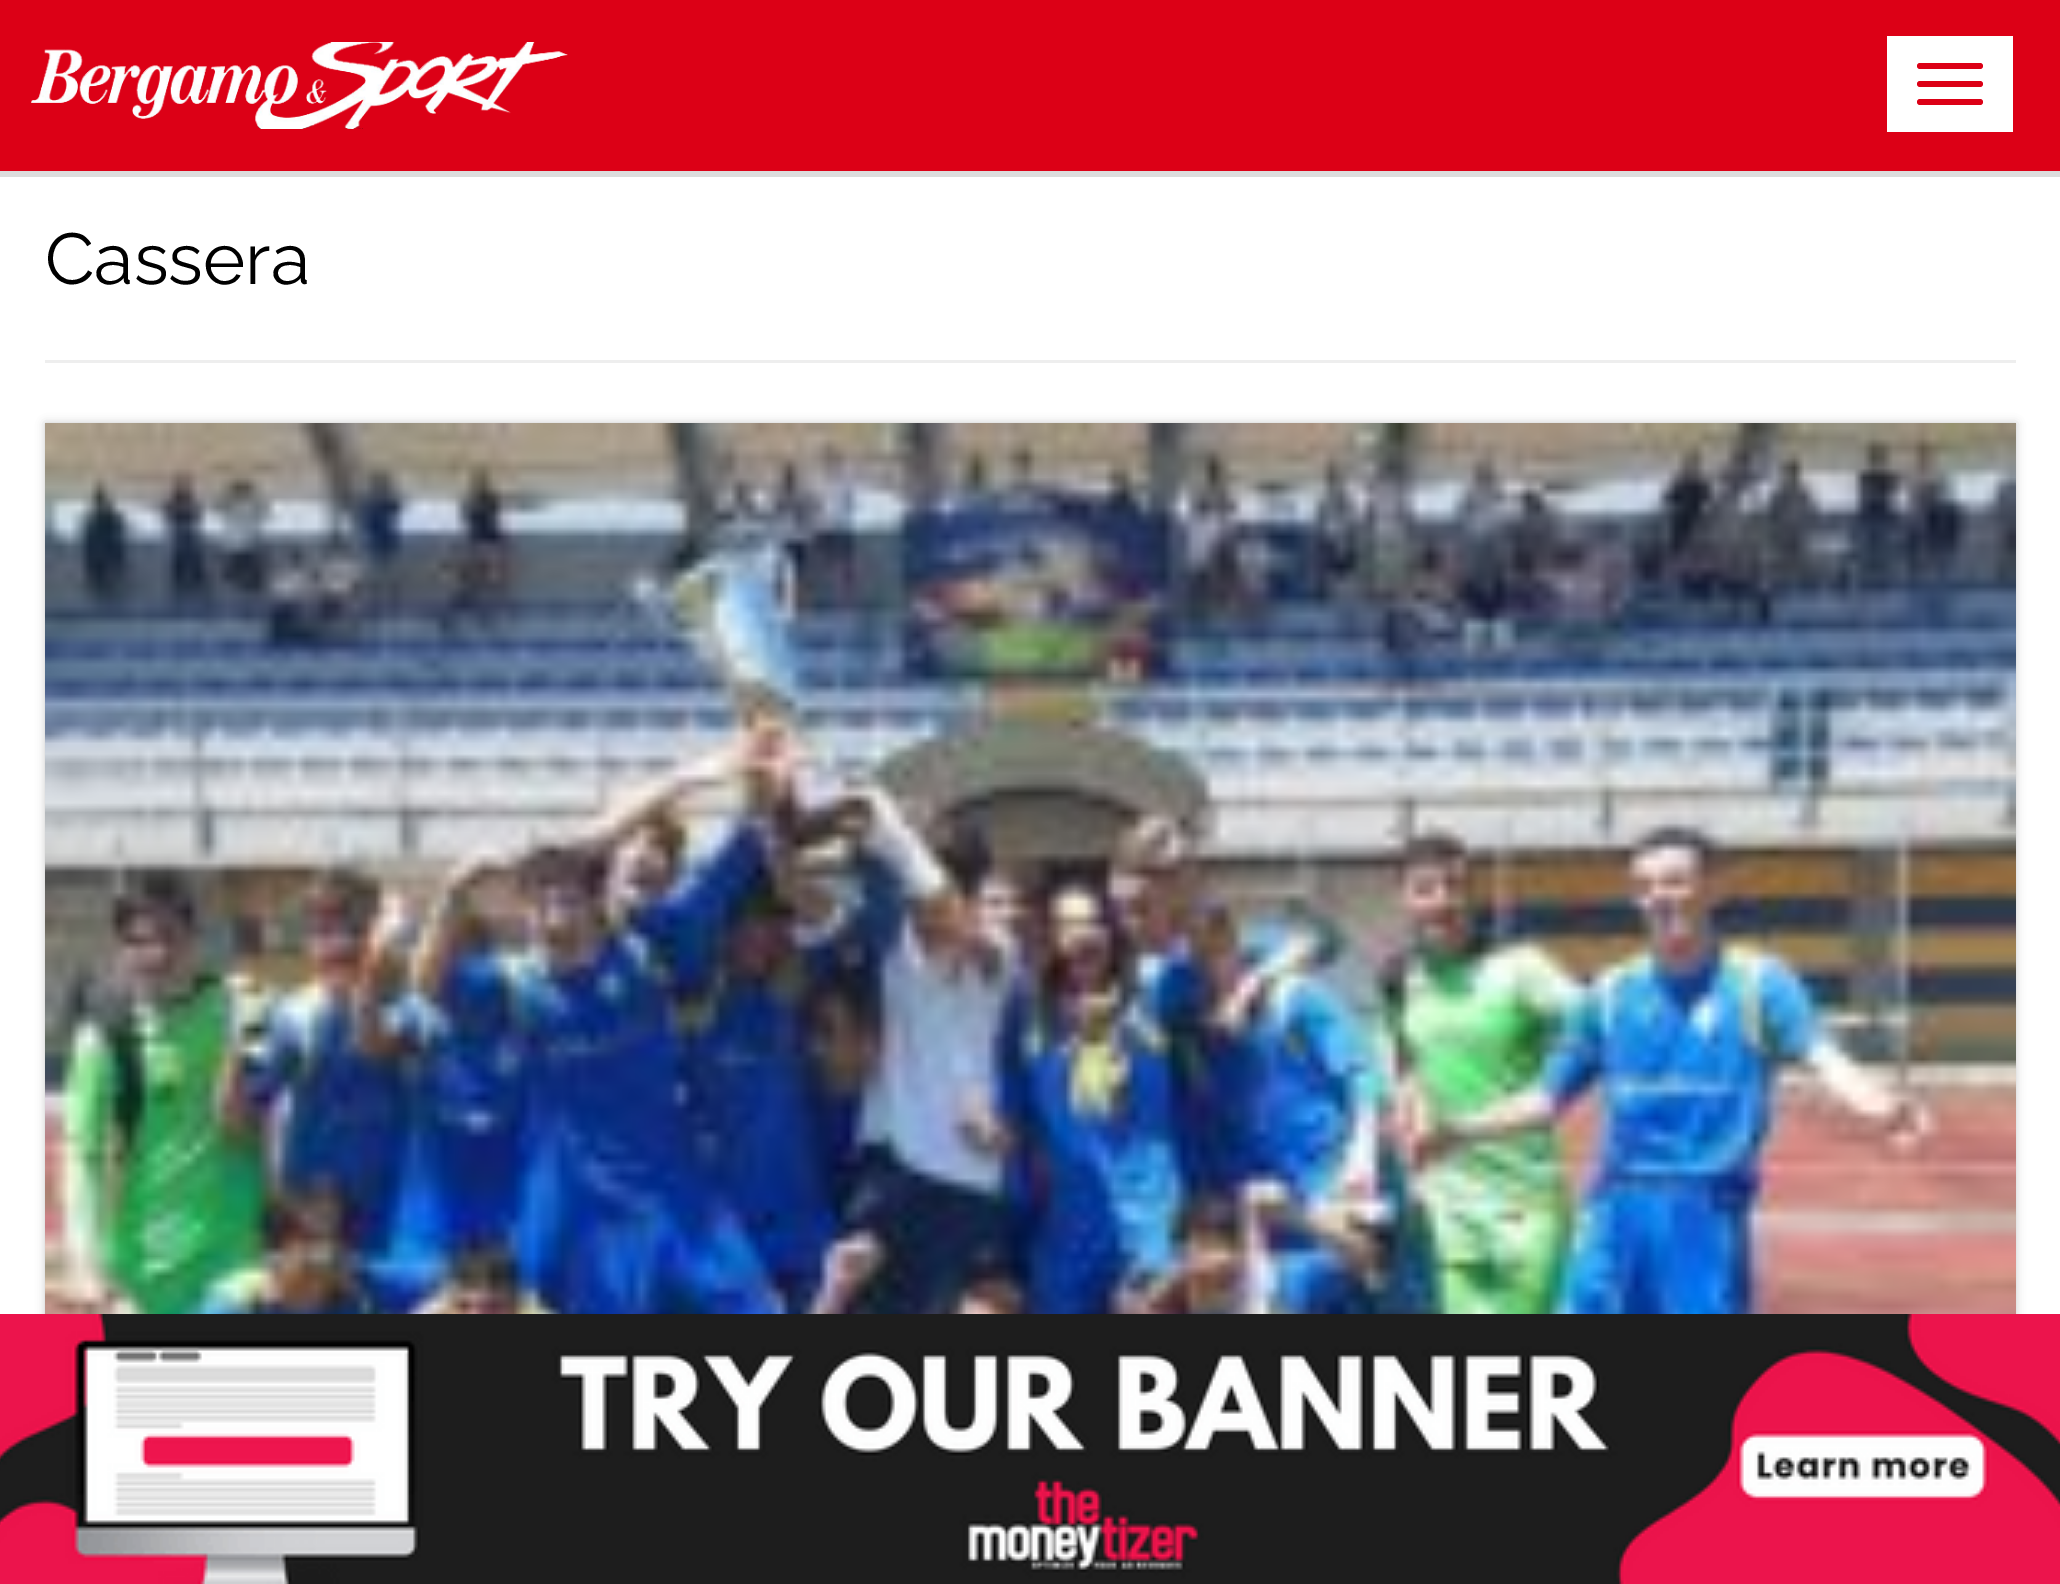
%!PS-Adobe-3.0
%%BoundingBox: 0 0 2060 1584
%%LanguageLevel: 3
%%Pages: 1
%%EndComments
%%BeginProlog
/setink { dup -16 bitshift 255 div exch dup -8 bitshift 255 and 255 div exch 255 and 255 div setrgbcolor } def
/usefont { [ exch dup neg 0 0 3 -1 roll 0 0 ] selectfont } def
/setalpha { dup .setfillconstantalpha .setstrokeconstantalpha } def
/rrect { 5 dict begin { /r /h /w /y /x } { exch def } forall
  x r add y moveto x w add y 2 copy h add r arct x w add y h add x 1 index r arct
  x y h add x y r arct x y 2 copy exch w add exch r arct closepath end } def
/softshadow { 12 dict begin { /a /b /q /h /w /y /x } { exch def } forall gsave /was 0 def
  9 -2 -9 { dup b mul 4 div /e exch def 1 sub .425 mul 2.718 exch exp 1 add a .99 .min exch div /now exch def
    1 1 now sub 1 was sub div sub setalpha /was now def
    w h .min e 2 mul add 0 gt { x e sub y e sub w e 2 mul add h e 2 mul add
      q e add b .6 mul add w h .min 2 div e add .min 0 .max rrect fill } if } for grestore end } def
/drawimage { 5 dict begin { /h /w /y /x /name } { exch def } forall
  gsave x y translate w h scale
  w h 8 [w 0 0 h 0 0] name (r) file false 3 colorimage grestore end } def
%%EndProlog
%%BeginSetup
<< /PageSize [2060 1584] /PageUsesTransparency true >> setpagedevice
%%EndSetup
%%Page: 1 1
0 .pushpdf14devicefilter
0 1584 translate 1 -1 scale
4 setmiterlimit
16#DCDCDC setink
0 0 2060 1584 rectfill
16#DC0016 setink
0 0 2060 171 rectfill
(img1.raw) 31 42 537 87 drawimage
16#FFFFFF setink
1887 36 126 96 rectfill
16#DC0016 setink
1917 63 66 6 3 rrect fill
1917 81 66 6 3 rrect fill
1917 99 66 6 3 rrect fill
16#FFFFFF setink
0 177 2060 1137 rectfill
/Raleway-Regular 72 usefont
16#000000 setink
45 284 moveto (Cassera) show
16#EEEEEE setink
45 360 1971 3 rectfill
16#000000 setink
45 423 1971 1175 0 4.5 0.2 softshadow
(img2.raw) 45 423 1971 891 drawimage
(img3.raw) 0 1314 2060 270 drawimage
.poppdf14devicefilter showpage
%%EOF
